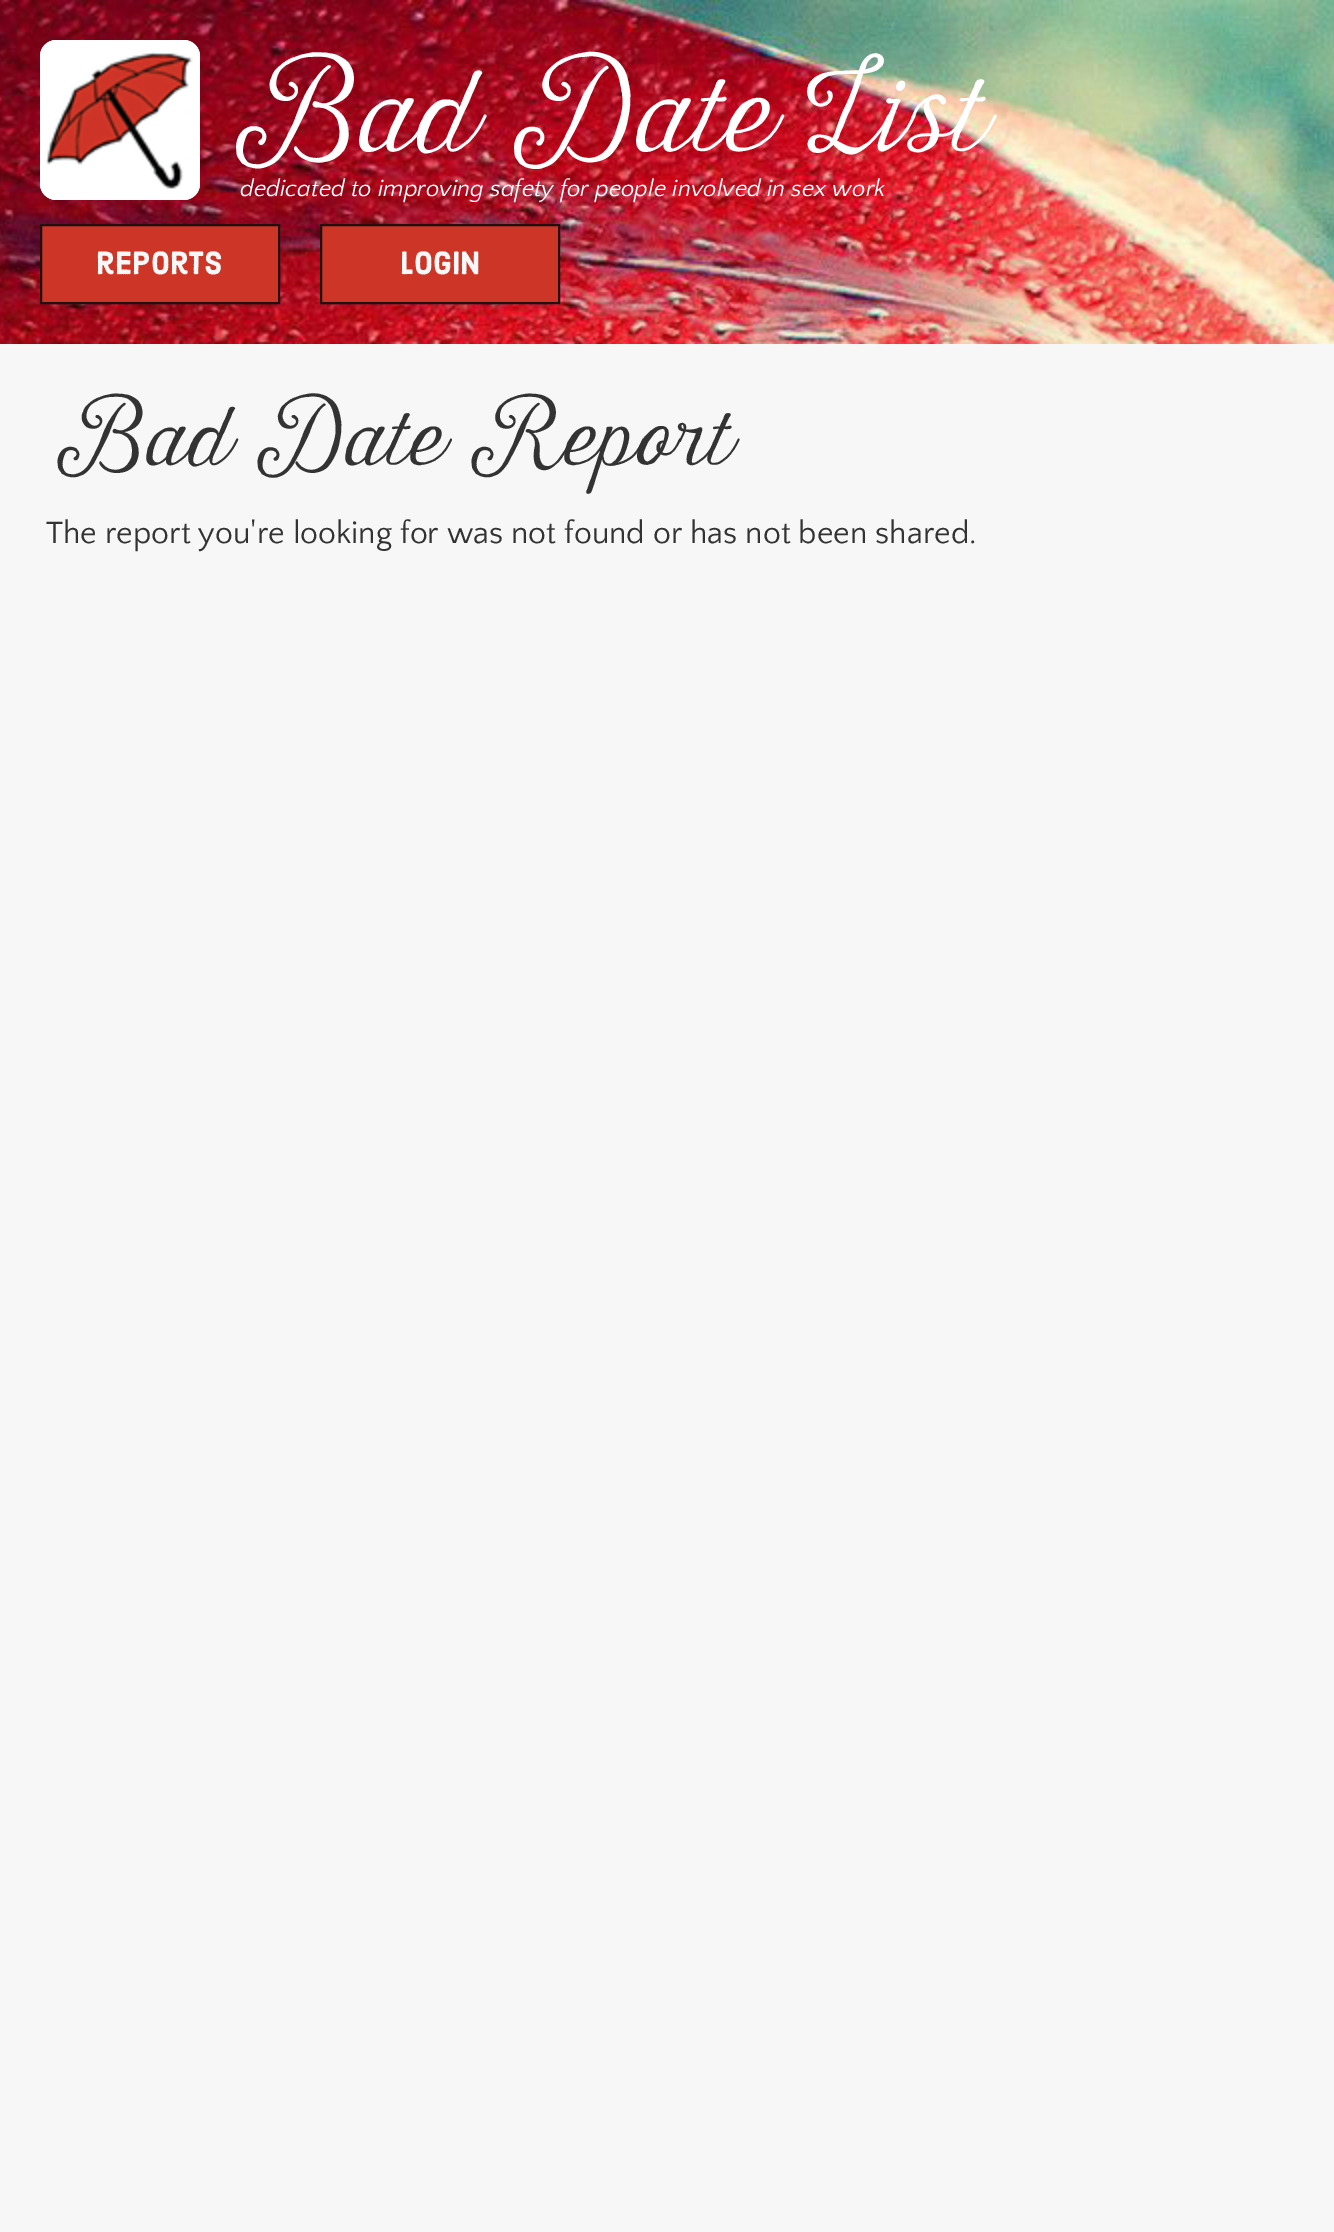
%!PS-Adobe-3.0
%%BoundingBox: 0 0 1334 2232
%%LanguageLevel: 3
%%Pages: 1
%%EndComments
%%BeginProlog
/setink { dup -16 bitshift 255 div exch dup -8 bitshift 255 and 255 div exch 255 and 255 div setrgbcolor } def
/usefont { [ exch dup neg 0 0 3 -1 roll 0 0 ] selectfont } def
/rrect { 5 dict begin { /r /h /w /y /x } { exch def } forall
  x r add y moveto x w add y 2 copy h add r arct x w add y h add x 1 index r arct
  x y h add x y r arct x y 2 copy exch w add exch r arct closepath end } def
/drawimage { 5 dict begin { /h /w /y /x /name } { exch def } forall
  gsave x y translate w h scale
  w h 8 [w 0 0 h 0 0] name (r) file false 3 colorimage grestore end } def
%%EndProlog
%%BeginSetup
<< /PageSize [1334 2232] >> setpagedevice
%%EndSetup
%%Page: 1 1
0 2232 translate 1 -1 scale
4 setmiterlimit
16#F7F7F7 setink
0 0 1334 2232 rectfill
(img1.raw) 0 0 1334 344 drawimage
16#FFFFFF setink
40 40 160 160 16 rrect fill
(img2.raw) 40 40 160 160 drawimage
/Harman-Regular 100 usefont
220 150 moveto (Bad Date List) show
/QuattrocentoSans-Italic 24 usefont
240 196 moveto (dedicated to improving safety for people involved in sex work) show
16#CD3627 setink
41 225 moveto 279 225 lineto 279 303 lineto 41 303 lineto closepath gsave fill grestore
16#201010 setink
2 setlinewidth
stroke
/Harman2-Regular 32 usefont
16#F7F7F7 setink
96 274 moveto (reports) show
16#CD3627 setink
321 225 moveto 559 225 lineto 559 303 lineto 321 303 lineto closepath gsave fill grestore
16#201010 setink
stroke
16#F7F7F7 setink
400 274 moveto (login) show
/Harman-Regular 72 usefont
16#333333 setink
46 464 moveto (Bad Date Report) show
/QuattrocentoSans-Regular 32 usefont
46 543 moveto (The report you're looking for was not found or has not been shared.) show
showpage
%%EOF
